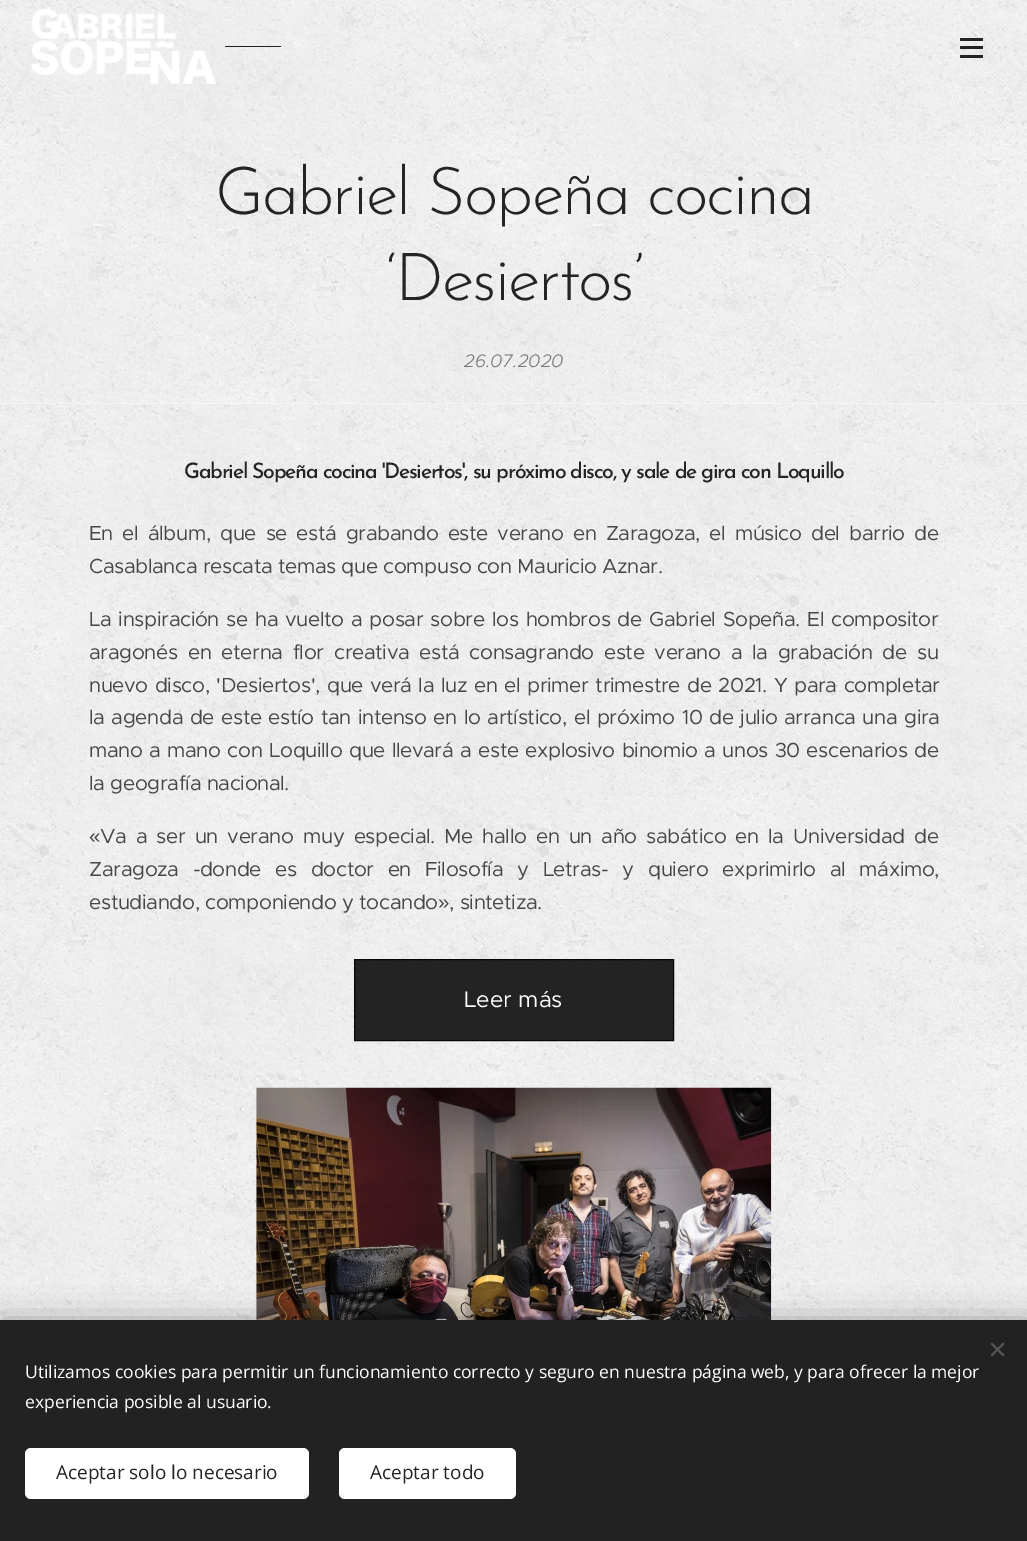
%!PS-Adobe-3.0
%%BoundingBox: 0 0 1027 1541
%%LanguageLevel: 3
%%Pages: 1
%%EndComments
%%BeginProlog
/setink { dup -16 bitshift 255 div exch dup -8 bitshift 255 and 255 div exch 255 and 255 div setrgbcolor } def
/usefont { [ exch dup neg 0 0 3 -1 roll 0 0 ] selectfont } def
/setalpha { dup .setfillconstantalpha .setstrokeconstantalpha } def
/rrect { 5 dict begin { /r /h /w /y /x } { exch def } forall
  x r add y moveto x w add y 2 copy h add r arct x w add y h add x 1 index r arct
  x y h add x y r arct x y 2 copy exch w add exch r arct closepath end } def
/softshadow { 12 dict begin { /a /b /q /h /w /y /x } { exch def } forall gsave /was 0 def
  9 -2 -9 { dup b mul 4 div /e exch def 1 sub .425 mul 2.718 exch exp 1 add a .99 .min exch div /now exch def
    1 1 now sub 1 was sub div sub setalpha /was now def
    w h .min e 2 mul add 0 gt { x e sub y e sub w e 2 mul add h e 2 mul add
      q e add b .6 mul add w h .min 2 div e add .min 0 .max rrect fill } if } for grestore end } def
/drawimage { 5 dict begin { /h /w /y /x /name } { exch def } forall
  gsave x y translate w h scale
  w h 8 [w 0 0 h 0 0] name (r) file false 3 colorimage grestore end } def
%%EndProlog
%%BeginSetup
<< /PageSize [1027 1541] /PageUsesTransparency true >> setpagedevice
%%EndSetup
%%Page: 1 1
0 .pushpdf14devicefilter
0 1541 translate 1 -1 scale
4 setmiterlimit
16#FFFFFF setink
0 0 1027 1541 rectfill
(img2.raw) 0 0 1027 404 drawimage
(img1.raw) 31 8 185 76 drawimage
0.85 setalpha
[
    [225 46 56 1 16#000000]
    [960 46 23 3 16#000000]
    [960 38 23 3 16#000000]
    [960 55 23 3 16#000000]
] { aload pop setink rectfill } forall
/JosefinSans-Light 66.25 usefont
1 setalpha
16#242424 setink
215 214 moveto -2 0 (Gabriel Sopeña cocina) ashow
386 300 moveto -2 0 (‘Desiertos’) ashow
/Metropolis-LightItalic 18.25 usefont
16#767676 setink
464 367 moveto (26.07.2020) show
(img3.raw) 0 404 1027 916 drawimage
/JosefinSans-Medium 21.25 usefont
16#242424 setink
184 478 moveto -1.27 0 (Gabriel Sopeña cocina 'Desiertos', su próximo disco, y sale de gira con Loquillo) ashow
/Metropolis-Regular 20.5 usefont
16#474747 setink
89 540 moveto 3.75 0 32 -0.4 0 (En el álbum, que se está grabando este verano en Zaragoza, el músico del barrio de) awidthshow
89 573 moveto -0.4 0 (Casablanca rescata temas que compuso con Mauricio Aznar.) ashow
89 626 moveto 1.6 0 32 -0.4 0 (La inspiración se ha vuelto a posar sobre los hombros de Gabriel Sopeña. El compositor) awidthshow
89 659 moveto 4.5 0 32 -0.4 0 (aragonés en eterna flor creativa está consagrando este verano a la grabación de su) awidthshow
89 692 moveto 1.25 0 32 -0.4 0 (nuevo disco, 'Desiertos', que verá la luz en el primer trimestre de 2021. Y para completar) awidthshow
89 724 moveto 1.25 0 32 -0.4 0 (la agenda de este estío tan intenso en lo artístico, el próximo 10 de julio arranca una gira) awidthshow
89 757 moveto 1.1 0 32 -0.4 0 (mano a mano con Loquillo que llevará a este explosivo binomio a unos 30 escenarios de) awidthshow
89 790 moveto -0.4 0 (la geografía nacional.) ashow
/LiberationSans-Regular 20.5 usefont
89 843 moveto -0.4 0 («) ashow
/Metropolis-Regular 20.5 usefont
100 843 moveto 3.75 0 32 -0.4 0 (Va a ser un verano muy especial. Me hallo en un año sabático en la Universidad de) awidthshow
89 876 moveto 8.4 0 32 -0.4 0 (Zaragoza -donde es doctor en Filosofía y Letras- y quiero exprimirlo al máximo,) awidthshow
89 909 moveto -0.4 0 (estudiando, componiendo y tocando) ashow
/LiberationSans-Regular 20.5 usefont
438 909 moveto -0.4 0 (») ashow
/Metropolis-Regular 20.5 usefont
449 909 moveto -0.4 0 (, sintetiza.) ashow
0.85 setalpha
16#000000 setink
354 959 320 82 rectfill
354.5 959.5 319 81 rectstroke
/Metropolis-Regular 22.5 usefont
1 setalpha
16#FFFFFF setink
464 1007 moveto (Leer más) show
(img4.raw) 256 1087 516 233 drawimage
16#000000 setink
0 1320 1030 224 0 15.5 0.33 softshadow
16#222222 setink
0 1320 1027 221 rectfill
16#555555 setink
990.5 1355 moveto 1003 1342.5 lineto 1004.5 1344 lineto 992 1356.5 lineto closepath fill
992 1342.5 moveto 1004.5 1355 lineto 1003 1356.5 lineto 990.5 1344 lineto closepath fill
/OpenSans-Regular 17.5 usefont
16#FFFFFF setink
25 1378 moveto (Utilizamos cookies para permitir un funcionamiento correcto y seguro en nuestra página web, y para ofrecer la mejor) show
25 1408 moveto (experiencia posible al usuario.) show
25 1448 284 51 6 rrect fill
/OpenSans-Regular 19 usefont
16#242424 setink
56 1479 moveto (Aceptar solo lo necesario) show
16#FFFFFF setink
339 1448 177 51 6 rrect fill
16#242424 setink
370 1479 moveto (Aceptar todo) show
.poppdf14devicefilter showpage
%%EOF
